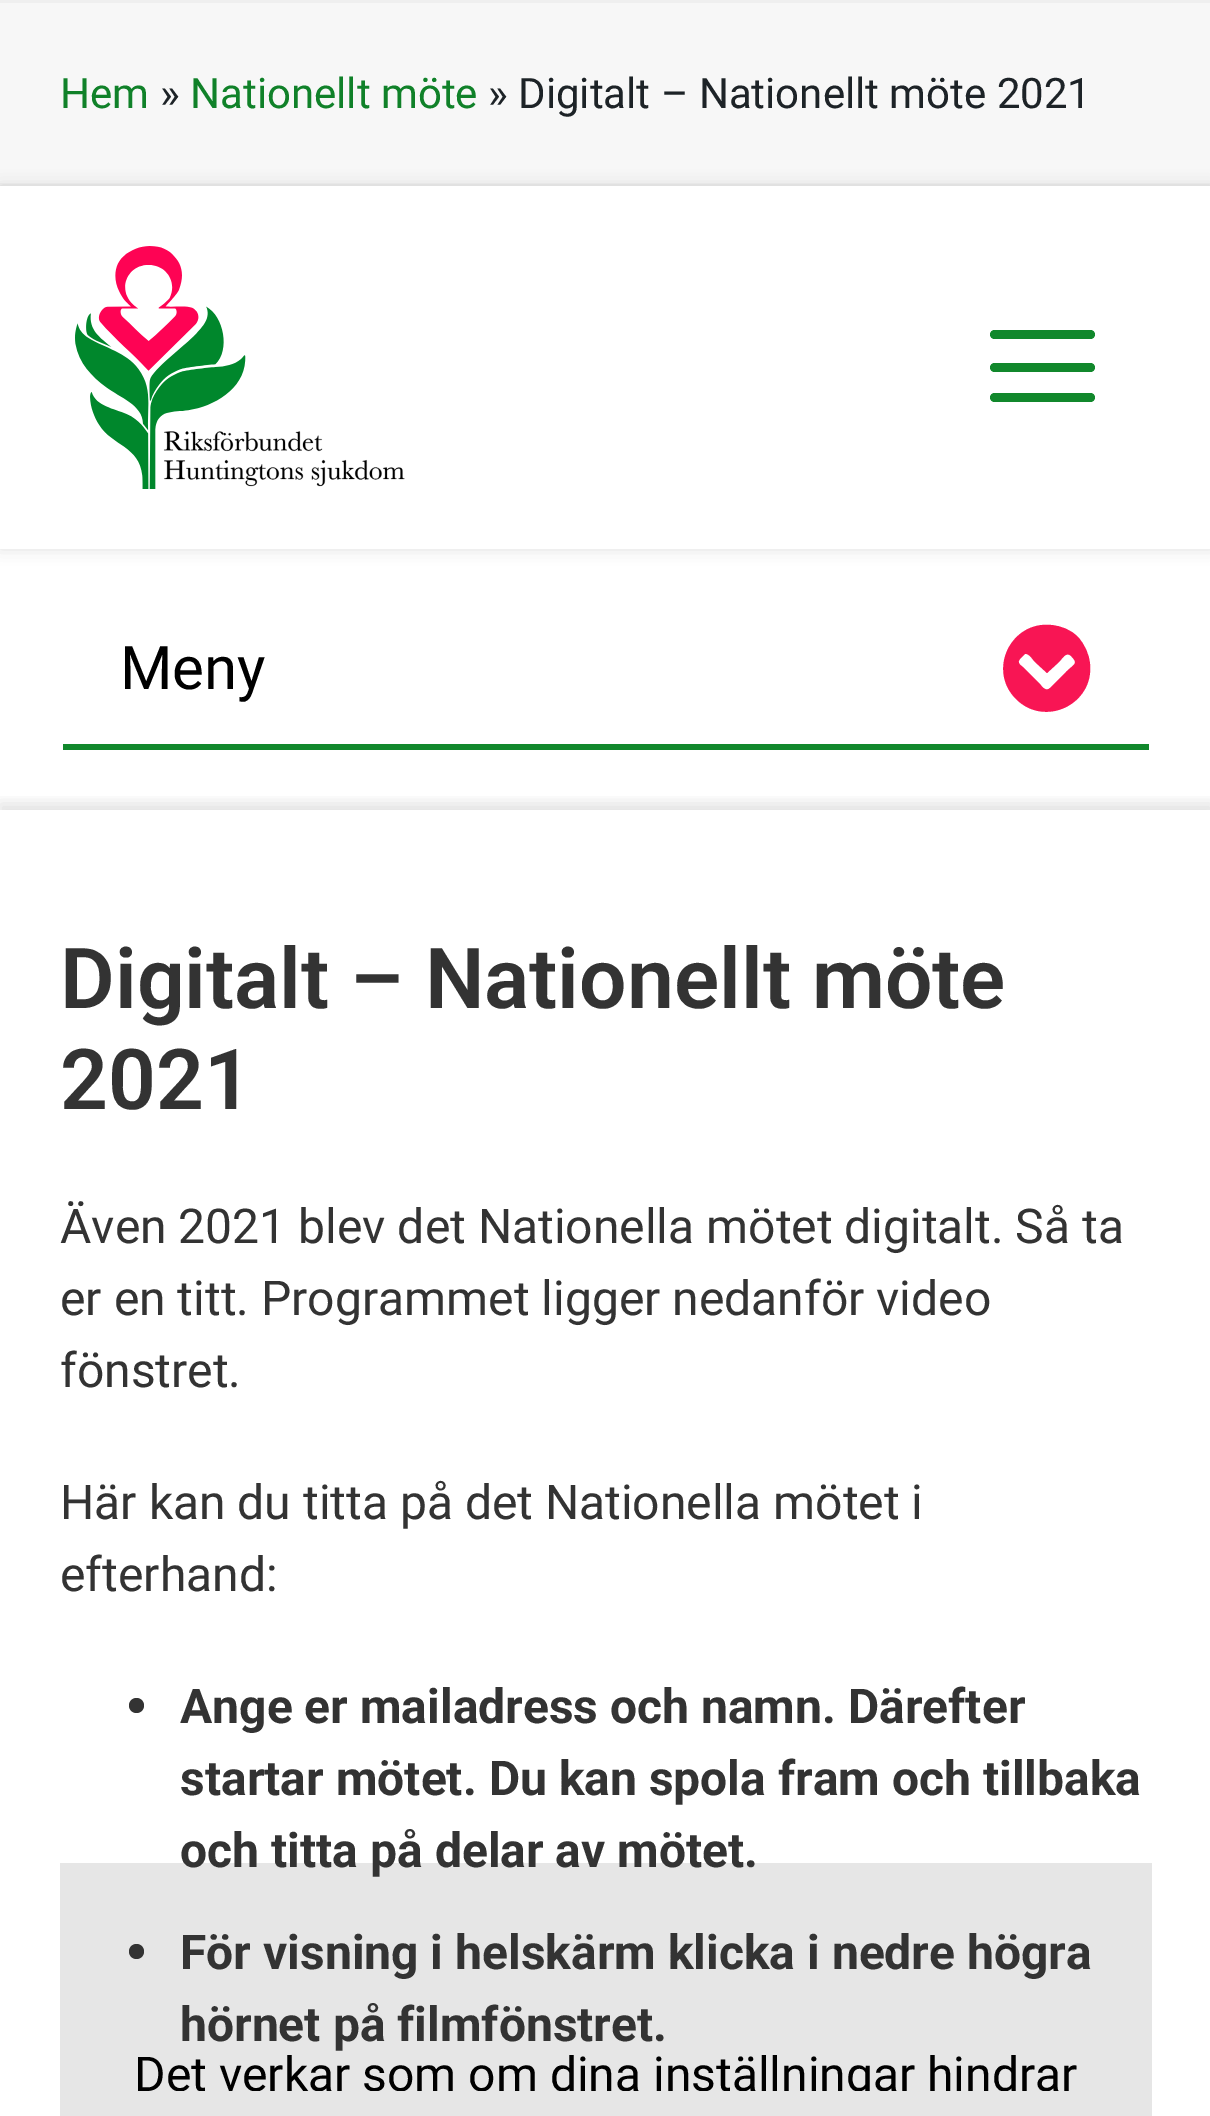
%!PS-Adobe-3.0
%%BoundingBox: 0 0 1210 2116
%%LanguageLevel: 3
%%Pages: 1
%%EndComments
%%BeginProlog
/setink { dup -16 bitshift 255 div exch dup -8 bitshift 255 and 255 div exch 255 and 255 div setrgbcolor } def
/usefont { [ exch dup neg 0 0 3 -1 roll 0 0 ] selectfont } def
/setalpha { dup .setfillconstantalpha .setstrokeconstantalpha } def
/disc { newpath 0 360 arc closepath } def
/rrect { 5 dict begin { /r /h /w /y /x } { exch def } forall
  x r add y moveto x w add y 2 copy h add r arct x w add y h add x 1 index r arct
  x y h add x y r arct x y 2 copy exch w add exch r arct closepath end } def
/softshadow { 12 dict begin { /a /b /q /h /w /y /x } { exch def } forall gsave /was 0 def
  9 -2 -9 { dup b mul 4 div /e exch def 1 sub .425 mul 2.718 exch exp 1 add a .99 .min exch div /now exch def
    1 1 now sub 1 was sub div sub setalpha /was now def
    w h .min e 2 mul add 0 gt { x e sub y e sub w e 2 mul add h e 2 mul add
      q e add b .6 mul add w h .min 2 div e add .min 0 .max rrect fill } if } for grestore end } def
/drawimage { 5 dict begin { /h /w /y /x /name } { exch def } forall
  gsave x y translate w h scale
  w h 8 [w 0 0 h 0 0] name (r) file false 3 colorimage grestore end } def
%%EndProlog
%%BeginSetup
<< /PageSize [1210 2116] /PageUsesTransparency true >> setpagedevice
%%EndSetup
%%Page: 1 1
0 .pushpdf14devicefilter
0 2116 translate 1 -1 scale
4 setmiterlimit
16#FFFFFF setink
0 0 1210 2116 rectfill
[
    [0 3 1210 180 16#F7F7F7]
    [0 0 1210 3 16#EFEFEF]
    [0 183 1210 3 16#EFEFEF]
] { aload pop setink rectfill } forall
/Roboto-Regular 42 usefont
16#108129 setink
60 108 moveto (Hem) show
16#1D2327 setink
160 108 moveto (») show
16#108129 setink
190 108 moveto (Nationellt möte) show
16#1D2327 setink
488 108 moveto (» Digitalt – Nationellt möte 2021) show
16#333333 setink
0 186 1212 363 0 7.5 0.15 softshadow
16#FFFFFF setink
0 186 1210 363 rectfill
(img1.raw) 75 246 330 243 drawimage
16#11882C setink
990 363 105 9 4.5 rrect fill
990 330 105 9 4.5 rrect fill
990 393 105 9 4.5 rrect fill
63 744 1086 6 rectfill
/Roboto-Regular 60 usefont
16#000000 setink
120 689 moveto (Meny) show
16#F81554 setink
1078 637 moveto 1085 645 1089 654 1090 664 curveto 1094 704 1045 728 1016 699 curveto 987 670 1011 621 1051 625 curveto 1062 626 1071 630 1078 637 curveto closepath 1050 688 moveto 1066 672 lineto 1074 664 1079 664 1071 656 curveto 1066 651 1062 659 1059 662 curveto 1047 673 lineto 1035 662 lineto 1033 660 1029 653 1025 654 curveto 1022 657 lineto 1016 662 1019 664 1024 668 curveto 1040 684 lineto 1042 687 1046 692 1050 688 curveto closepath fill
gsave
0 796 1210 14 rectclip
16#333333 setink
0 804 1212 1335 0 7.5 0.15 softshadow
grestore
/Roboto-SemiBold 84 usefont
16#333333 setink
60 1008 moveto (Digitalt – Nationellt möte) show
60 1109 moveto (2021) show
/Roboto-Regular 48 usefont
[
    [(Även 2021 blev det Nationella mötet digitalt. Så ta) 60 1243]
    [(er en titt. Programmet ligger nedanför video) 60 1315]
    [(fönstret.) 60 1387]
    [(Här kan du titta på det Nationella mötet i) 60 1519]
    [(efterhand:) 60 1591]
] { aload pop moveto show } forall
136.5 1705.5 7.5 disc fill
/Roboto-Bold 48 usefont
180 1723 moveto (Ange er mailadress och namn. Därefter) show
180 1795 moveto (startar mötet. Du kan spola fram och tillbaka) show
16#E6E6E6 setink
60 1863 1092 228 rectfill
16#333333 setink
180 1867 moveto (och titta på delar av mötet.) show
136.5 1951.5 7.5 disc fill
180 1969 moveto (För visning i helskärm klicka i nedre högra) show
180 2041 moveto (hörnet på filmfönstret.) show
/Roboto-Regular 48 usefont
16#000000 setink
134 2091 moveto (Det verkar som om dina inställningar hindrar) show
16#E6E6E6 setink
60 2091 1092 25 rectfill
.poppdf14devicefilter showpage
%%EOF
